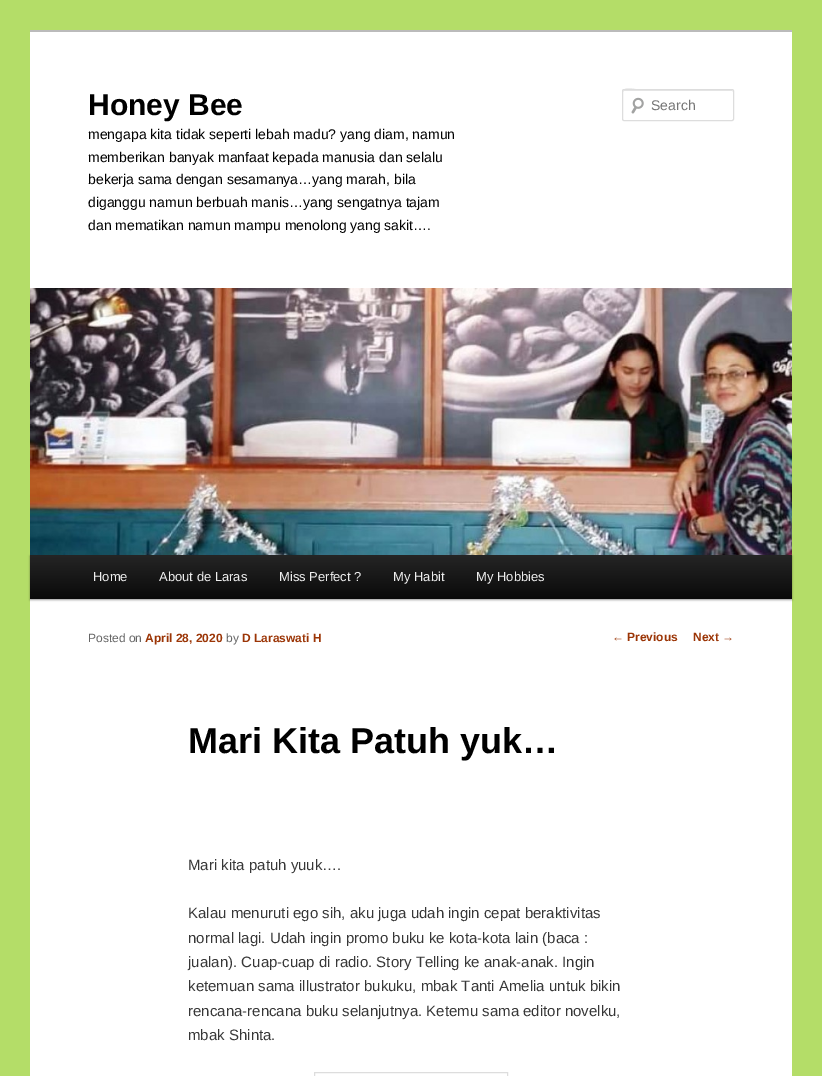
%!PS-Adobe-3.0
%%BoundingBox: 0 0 822 1076
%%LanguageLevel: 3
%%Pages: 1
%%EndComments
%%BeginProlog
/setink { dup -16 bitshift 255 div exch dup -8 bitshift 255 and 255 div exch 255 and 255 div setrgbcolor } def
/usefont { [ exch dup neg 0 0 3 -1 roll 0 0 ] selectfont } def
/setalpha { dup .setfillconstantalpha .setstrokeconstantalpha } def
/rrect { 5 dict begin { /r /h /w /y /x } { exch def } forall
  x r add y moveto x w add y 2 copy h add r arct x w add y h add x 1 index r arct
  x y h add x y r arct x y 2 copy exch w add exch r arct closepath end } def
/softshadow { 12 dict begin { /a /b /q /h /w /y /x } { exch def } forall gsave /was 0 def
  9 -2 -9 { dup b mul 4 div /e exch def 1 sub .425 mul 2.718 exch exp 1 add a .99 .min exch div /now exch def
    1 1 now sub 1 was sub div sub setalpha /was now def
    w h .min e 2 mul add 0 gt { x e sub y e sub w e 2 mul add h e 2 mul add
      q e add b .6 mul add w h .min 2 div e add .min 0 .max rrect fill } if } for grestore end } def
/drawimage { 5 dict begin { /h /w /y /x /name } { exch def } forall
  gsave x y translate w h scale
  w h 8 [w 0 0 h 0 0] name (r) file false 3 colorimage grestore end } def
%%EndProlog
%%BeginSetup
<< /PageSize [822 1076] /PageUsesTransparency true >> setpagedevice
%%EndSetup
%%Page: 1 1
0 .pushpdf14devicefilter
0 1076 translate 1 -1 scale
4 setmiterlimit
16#B4DD68 setink
0 0 822 1076 rectfill
16#FFFFFF setink
30 32 762 1044 rectfill
16#BBBBBB setink
30 30 762 2 rectfill
/LiberationSans-Bold 30 usefont
16#000000 setink
88 115 moveto (Honey Bee) show
/LiberationSans-Regular 14 usefont
[
    [(mengapa kita tidak seperti lebah madu? yang diam, namun) 88 139]
    [(memberikan banyak manfaat kepada manusia dan selalu) 88 162]
    [(bekerja sama dengan sesamanya…yang marah, bila) 88 184]
    [(diganggu namun berbuah manis…yang sengatnya tajam) 88 207]
    [(dan mematikan namun mampu menolong yang sakit….) 88 230]
] { aload pop moveto show } forall
(img1.raw) 631 97 13 17 drawimage
16#E6E6E6 setink
624 91 moveto 733 91 lineto 733 92 lineto 732 90 lineto 642 90 lineto 638 90 623 85 623 92 curveto 623 91 623 91 624 91 curveto closepath fill
16#DDDDDD setink
622.5 89.5 111 31 1.5 rrect stroke
16#757575 setink
651 110 moveto (Search) show
16#000000 setink
30 556 762 44 0 1 0.4 softshadow
(img2.raw) 30 288 762 267 drawimage
gsave 30 555 moveto 792 555 lineto 792 599 lineto 30 599 lineto closepath clip newpath
<< /ShadingType 2 /ColorSpace /DeviceRGB /Coords [411 555 411 599] /Extend [true true] /Function << /FunctionType 2 /Domain [0 1] /C0 [0.145 0.145 0.145] /C1 [0.039 0.039 0.039] /N 1 >> >> shfill grestore
/LiberationSans-Regular 13 usefont
16#EEEEEE setink
[
    [(Home) 93 581]
    [(About de Laras) 159 581]
    [(Miss Perfect ?) 279 581]
    [(My Habit) 393 581]
    [(My Hobbies) 476 581]
] { aload pop moveto show } forall
/LiberationSans-Regular 12 usefont
16#666666 setink
88 642 moveto (Posted on) show
/LiberationSans-Bold 12 usefont
16#9B3506 setink
145 642 moveto (April 28, 2020) show
/LiberationSans-Regular 12 usefont
16#666666 setink
226 642 moveto (by) show
/LiberationSans-Bold 12 usefont
16#9B3506 setink
242 642 moveto (D Laraswati H) show
/LiberationSans-Bold 36 usefont
16#000000 setink
188 753 moveto (Mari Kita Patuh yuk…) show
/LiberationSans-Regular 15 usefont
16#373737 setink
[
    [(Mari kita patuh yuuk….) 188 870]
    [(Kalau menuruti ego sih, aku juga udah ingin cepat beraktivitas) 188 918]
    [(normal lagi. Udah ingin promo buku ke kota-kota lain \(baca :) 188 943]
    [(jualan\). Cuap-cuap di radio. Story Telling ke anak-anak. Ingin) 188 967]
    [(ketemuan sama illustrator bukuku, mbak Tanti Amelia untuk bikin) 188 991]
    [(rencana-rencana buku selanjutnya. Ketemu sama editor novelku,) 188 1016]
    [(mbak Shinta.) 188 1040]
] { aload pop moveto show } forall
16#DDDDDD setink
314.5 1072.5 193 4 rectstroke
/LiberationSans-Regular 12 usefont
16#9B3506 setink
612 641 moveto (←) show
/LiberationSans-Bold 12 usefont
627 641 moveto (Previous) show
693 641 moveto (Next) show
/LiberationSans-Regular 12 usefont
722 641 moveto (→) show
.poppdf14devicefilter showpage
%%EOF
